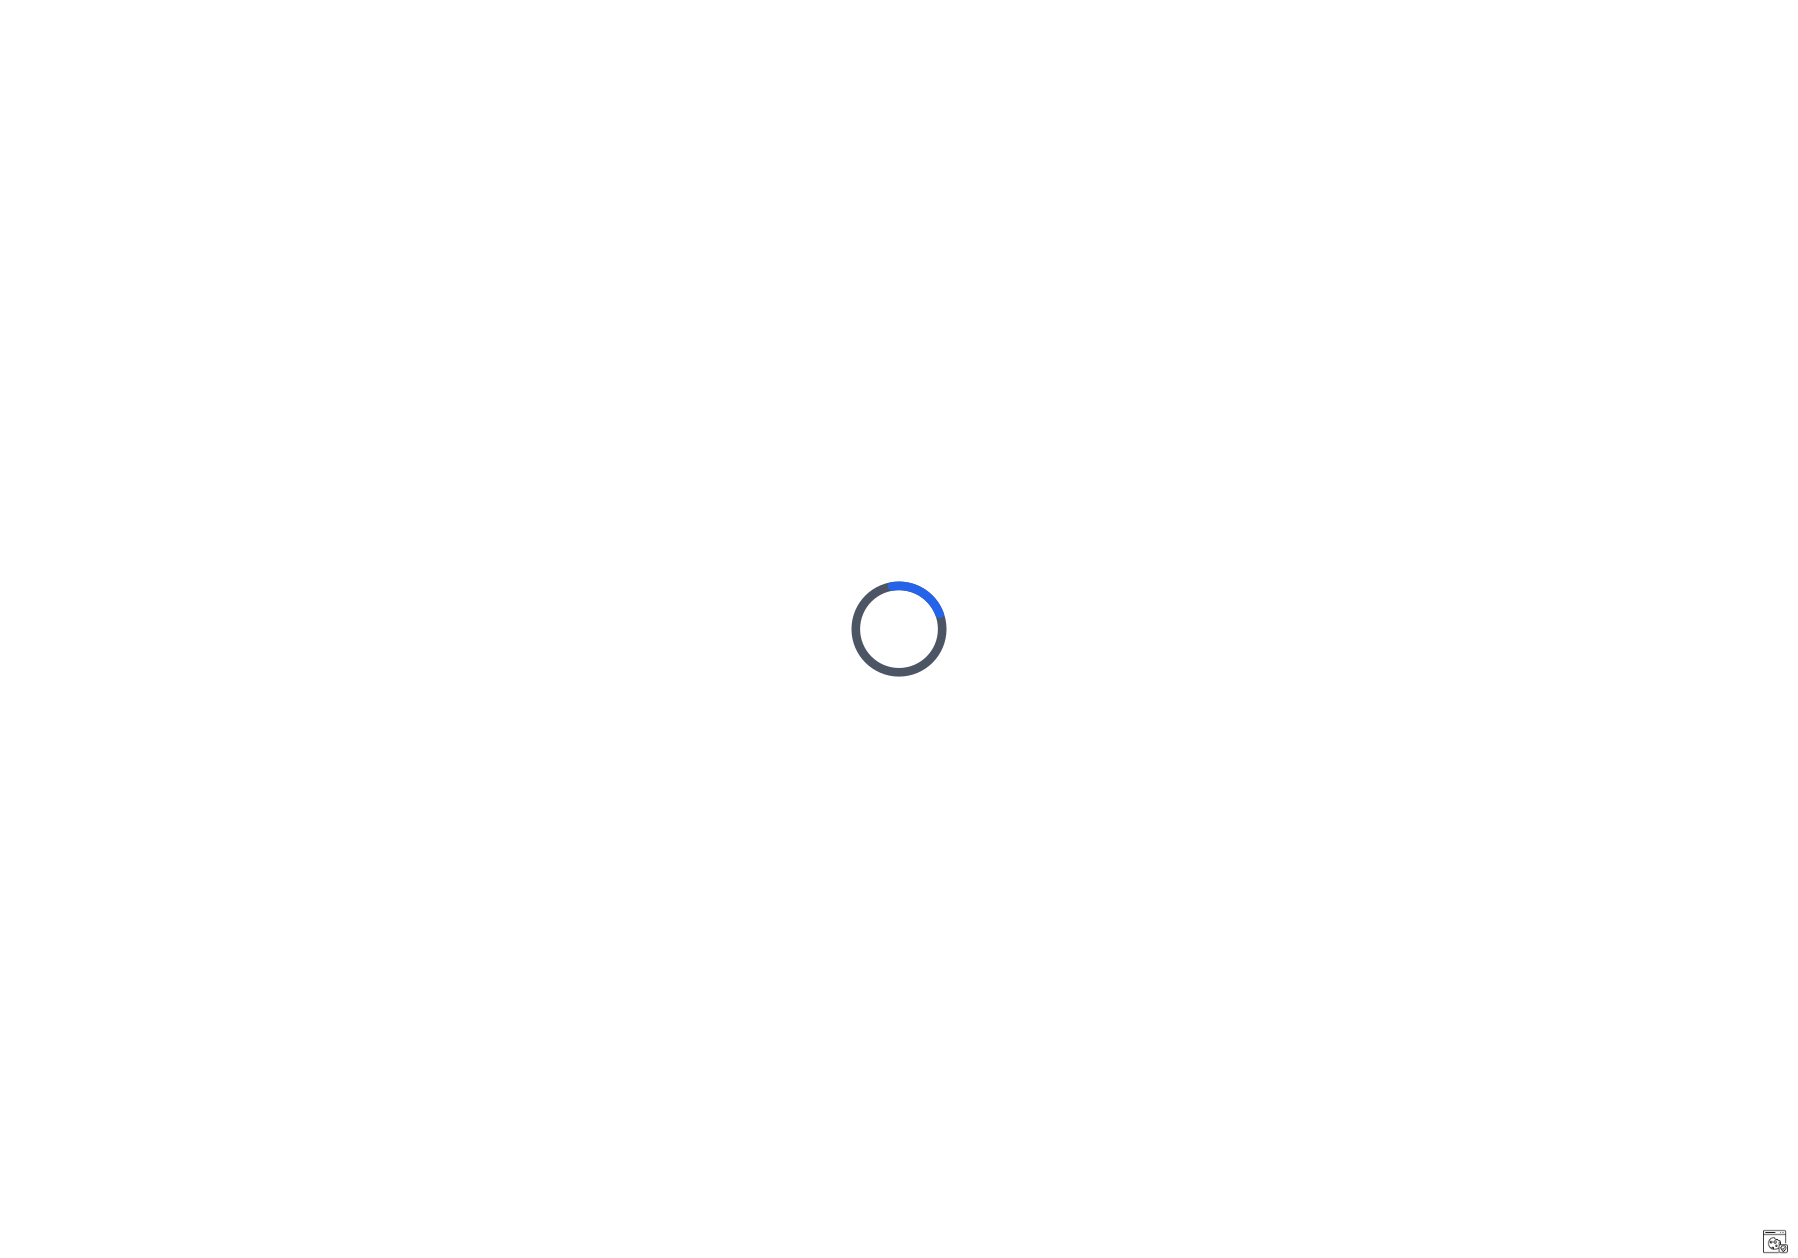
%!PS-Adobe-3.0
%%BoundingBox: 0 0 1798 1258
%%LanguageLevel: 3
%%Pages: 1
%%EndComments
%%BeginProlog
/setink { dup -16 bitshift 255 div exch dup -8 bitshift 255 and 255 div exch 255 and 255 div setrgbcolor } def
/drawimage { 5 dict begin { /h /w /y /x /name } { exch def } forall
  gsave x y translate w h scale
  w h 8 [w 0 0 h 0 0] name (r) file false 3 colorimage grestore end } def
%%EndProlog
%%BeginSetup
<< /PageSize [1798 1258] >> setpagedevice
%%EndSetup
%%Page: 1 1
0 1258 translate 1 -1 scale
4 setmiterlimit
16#FFFFFF setink
0 0 1798 1258 rectfill
(img1.raw) 851 581 96 96 drawimage
(img2.raw) 1763 1229 25 25 drawimage
showpage
%%EOF
